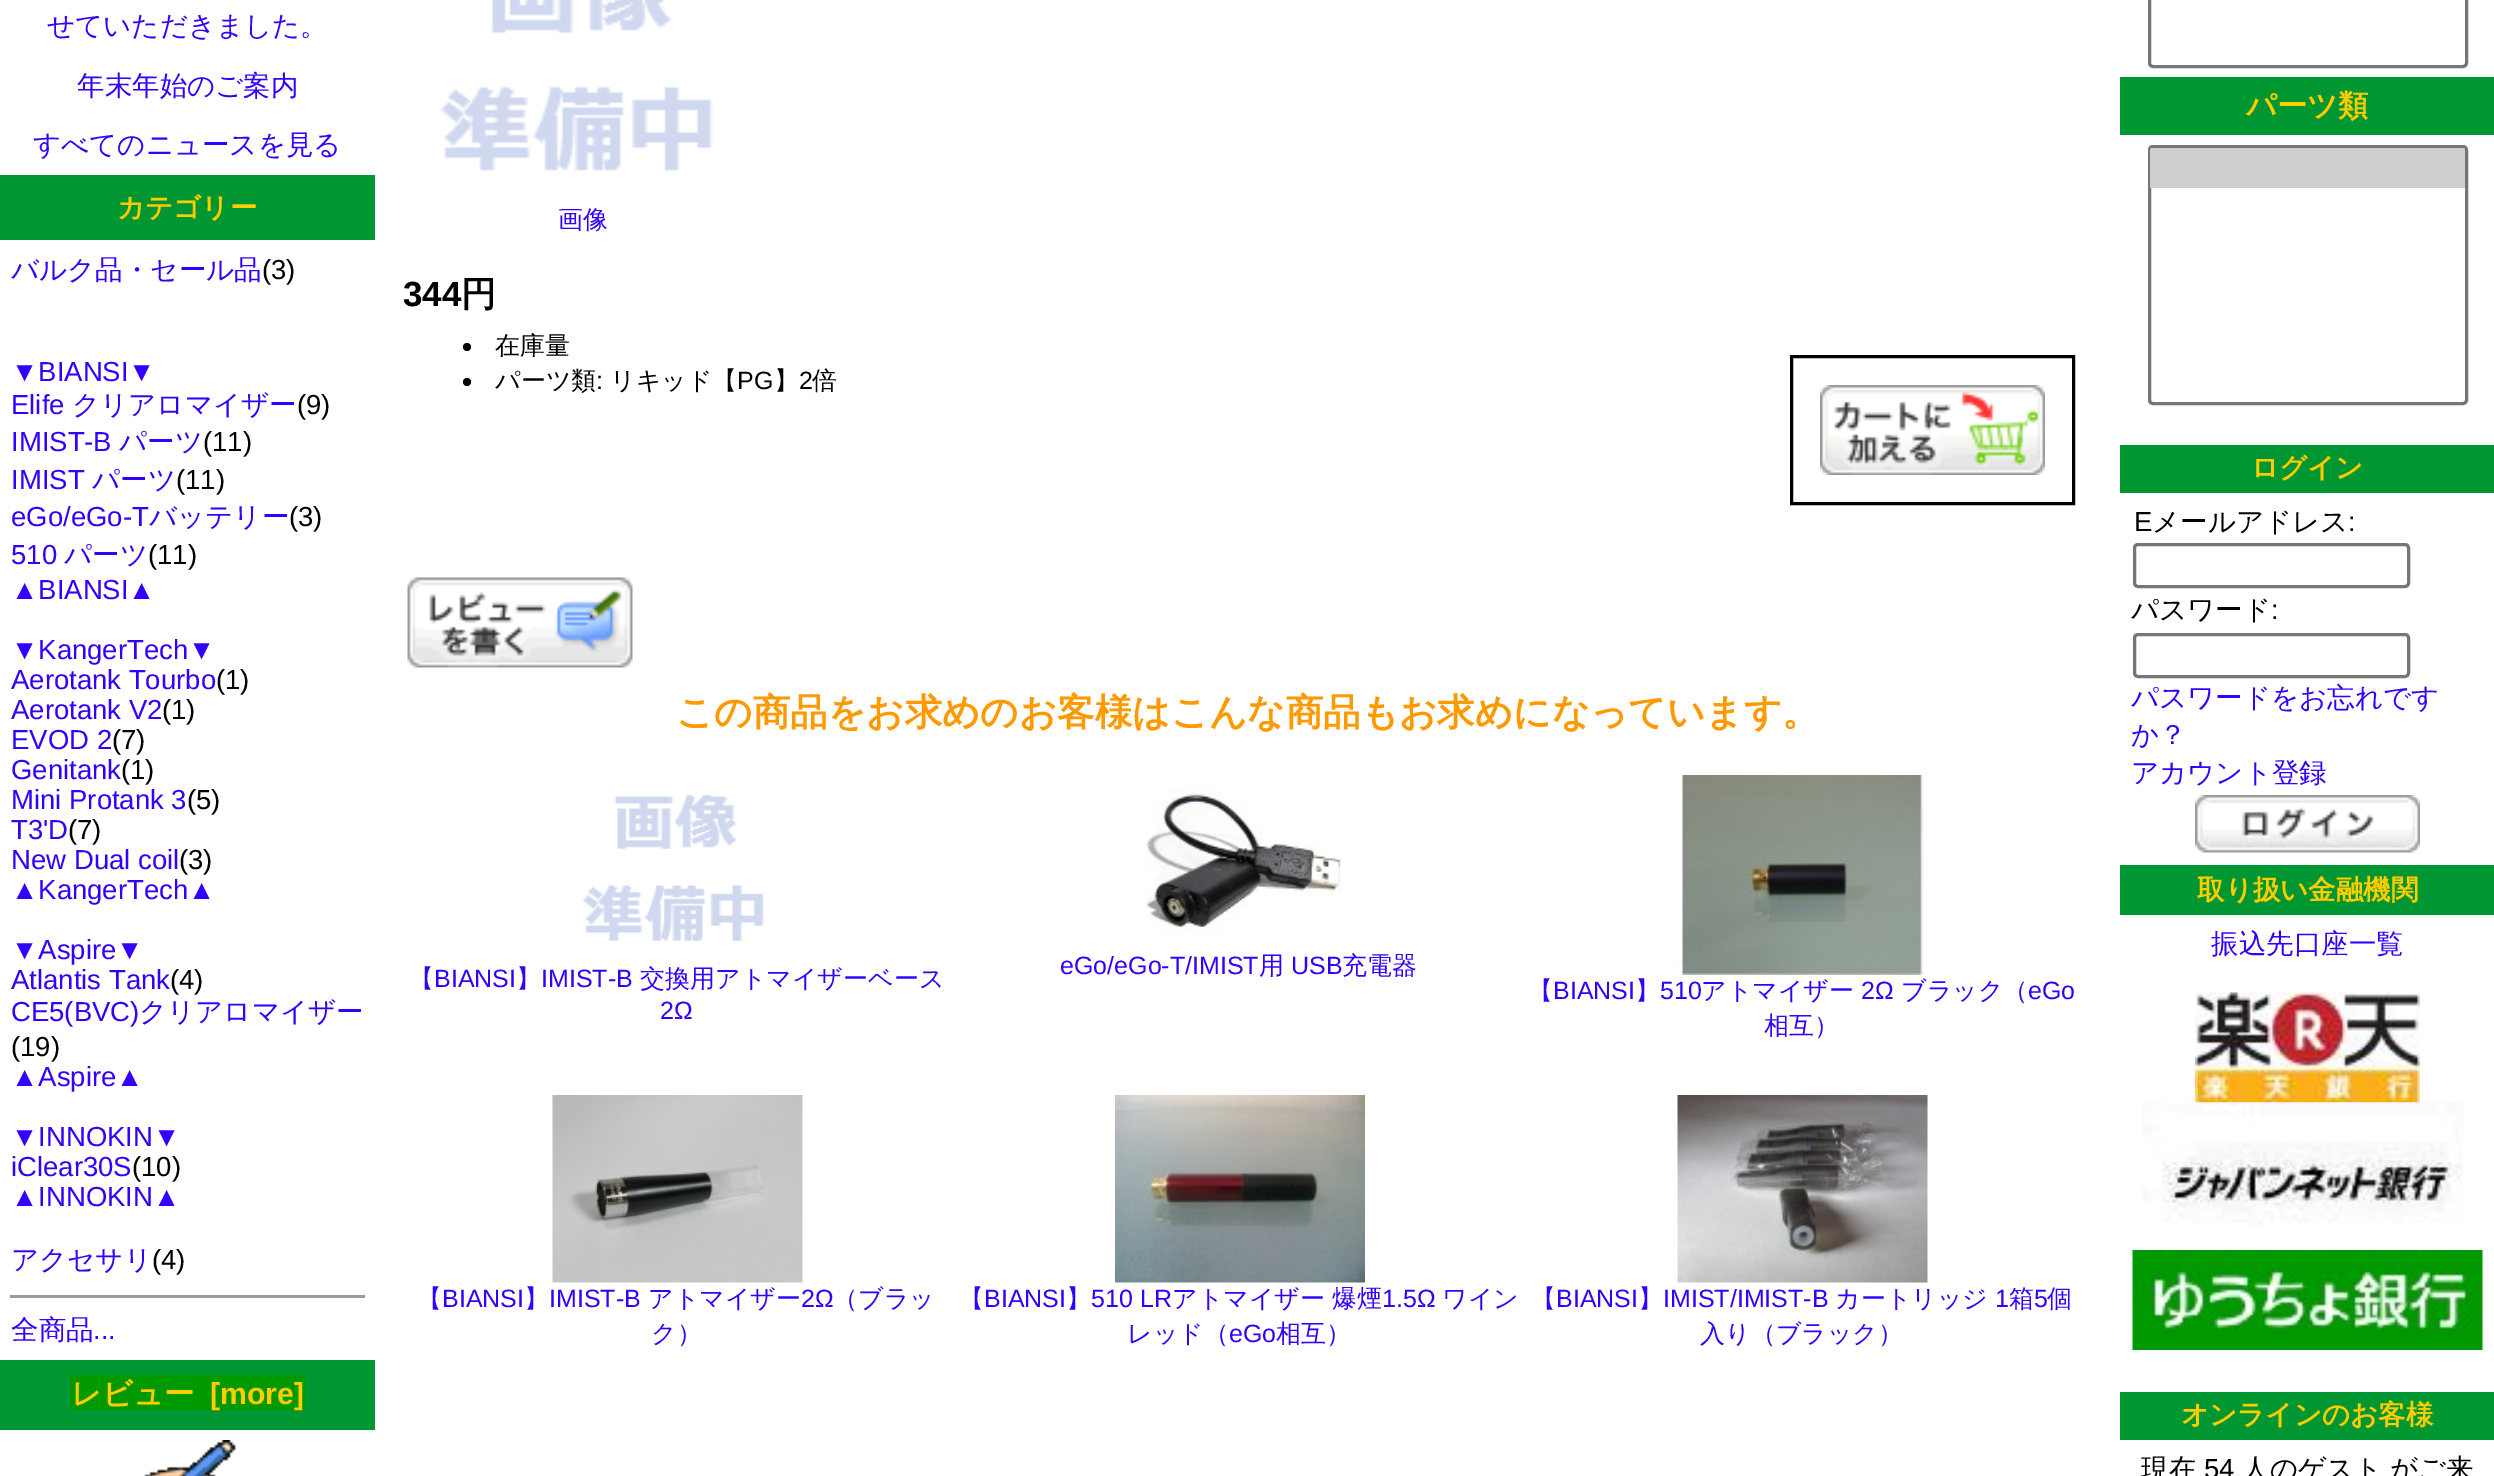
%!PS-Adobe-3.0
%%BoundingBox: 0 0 2494 1476
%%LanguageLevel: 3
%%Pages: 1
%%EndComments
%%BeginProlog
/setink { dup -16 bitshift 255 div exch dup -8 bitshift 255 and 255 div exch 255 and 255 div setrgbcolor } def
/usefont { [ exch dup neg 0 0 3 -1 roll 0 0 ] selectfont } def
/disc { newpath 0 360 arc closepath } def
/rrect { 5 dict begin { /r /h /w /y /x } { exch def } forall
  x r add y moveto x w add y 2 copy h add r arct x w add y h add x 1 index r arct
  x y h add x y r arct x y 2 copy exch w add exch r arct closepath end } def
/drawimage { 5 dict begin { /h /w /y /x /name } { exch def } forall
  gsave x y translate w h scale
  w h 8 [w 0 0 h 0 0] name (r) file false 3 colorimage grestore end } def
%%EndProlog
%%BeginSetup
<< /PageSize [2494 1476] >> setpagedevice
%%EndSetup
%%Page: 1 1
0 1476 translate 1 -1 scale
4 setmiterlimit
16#FFFFFF setink
0 0 2494 1476 rectfill
/WenQuanYiZenHei-Medium 27.5 usefont
16#3300FF setink
[
    [(せていただきました。) 47 35]
    [(年末年始のご案内) 77 95]
    [(すべてのニュースを見る) 33 154]
] { aload pop moveto show } forall
16#009631 setink
0 175 375 65 rectfill
/WenQuanYiZenHei-Bold 27.5 usefont
16#FFCC00 setink
117 217 moveto (カテゴリー) show
/WenQuanYiZenHei-Medium 27.5 usefont
16#3300FF setink
11 279 moveto (バルク品・セール品) show
/LiberationSans-Regular 27.5 usefont
16#000000 setink
262 279 moveto (\(3\)) show
16#3300FF setink
11 381 moveto (▼BIANSI▼) show
11 414 moveto (Elife) show
/WenQuanYiZenHei-Medium 27.5 usefont
72 414 moveto (クリアロマイザー) show
/LiberationSans-Regular 27.5 usefont
16#000000 setink
297 414 moveto (\(9\)) show
16#3300FF setink
11 451 moveto (IMIST-B) show
/WenQuanYiZenHei-Medium 27.5 usefont
119 451 moveto (パーツ) show
/LiberationSans-Regular 27.5 usefont
16#000000 setink
203 451 moveto (\(11\)) show
16#3300FF setink
11 489 moveto (IMIST) show
/WenQuanYiZenHei-Medium 27.5 usefont
92 489 moveto (パーツ) show
/LiberationSans-Regular 27.5 usefont
16#000000 setink
176 489 moveto (\(11\)) show
16#3300FF setink
11 526 moveto (eGo/eGo-T) show
/WenQuanYiZenHei-Medium 27.5 usefont
149 526 moveto (バッテリー) show
/LiberationSans-Regular 27.5 usefont
16#000000 setink
289 526 moveto (\(3\)) show
16#3300FF setink
11 564 moveto (510) show
/WenQuanYiZenHei-Medium 27.5 usefont
64 564 moveto (パーツ) show
/LiberationSans-Regular 27.5 usefont
16#000000 setink
148 564 moveto (\(11\)) show
16#3300FF setink
[
    [(▲BIANSI▲) 11 599]
    [(▼KangerTech▼) 11 659]
    [(Aerotank Tourbo) 11 689]
] { aload pop moveto show } forall
16#000000 setink
216 689 moveto (\(1\)) show
16#3300FF setink
11 719 moveto (Aerotank V2) show
16#000000 setink
162 719 moveto (\(1\)) show
16#3300FF setink
11 749 moveto (EVOD 2) show
16#000000 setink
112 749 moveto (\(7\)) show
16#3300FF setink
11 779 moveto (Genitank) show
16#000000 setink
121 779 moveto (\(1\)) show
16#3300FF setink
11 809 moveto (Mini Protank 3) show
16#000000 setink
187 809 moveto (\(5\)) show
16#3300FF setink
11 839 moveto (T3'D) show
16#000000 setink
68 839 moveto (\(7\)) show
16#3300FF setink
11 869 moveto (New Dual coil) show
16#000000 setink
179 869 moveto (\(3\)) show
16#3300FF setink
[
    [(▲KangerTech▲) 11 899]
    [(▼Aspire▼) 11 959]
    [(Atlantis Tank) 11 989]
] { aload pop moveto show } forall
16#000000 setink
170 989 moveto (\(4\)) show
16#3300FF setink
11 1021 moveto (CE5\(BVC\)) show
/WenQuanYiZenHei-Medium 27.5 usefont
139 1021 moveto (クリアロマイザー) show
/LiberationSans-Regular 27.5 usefont
16#000000 setink
11 1056 moveto (\(19\)) show
16#3300FF setink
[
    [(▲Aspire▲) 11 1086]
    [(▼INNOKIN▼) 11 1146]
    [(iClear30S) 11 1176]
] { aload pop moveto show } forall
16#000000 setink
132 1176 moveto (\(10\)) show
16#3300FF setink
11 1206 moveto (▲INNOKIN▲) show
/WenQuanYiZenHei-Medium 27.5 usefont
11 1269 moveto (アクセサリ) show
/LiberationSans-Regular 27.5 usefont
16#000000 setink
152 1269 moveto (\(4\)) show
16#9A9A9A setink
10 1295 355 3 rectfill
/WenQuanYiZenHei-Medium 27.5 usefont
16#3300FF setink
11 1339 moveto (全商品) show
/LiberationSans-Regular 27.5 usefont
93 1339 moveto (...) show
16#009631 setink
0 1360 375 70 rectfill
16#009900 setink
70 1375 235 35 rectfill
/WenQuanYiZenHei-Bold 30.25 usefont
16#FFCC00 setink
71 1404 moveto (レビュー) show
/LiberationSans-Bold 30.25 usefont
210 1404 moveto ([more]) show
(img1.raw) 144 1440 92 36 drawimage
(img2.raw) 440 0 273 171 drawimage
/WenQuanYiZenHei-Medium 25 usefont
16#3300FF setink
558 228 moveto (画像) show
/LiberationSans-Bold 35 usefont
16#000000 setink
403 306 moveto (344) show
/WenQuanYiZenHei-Bold 35 usefont
461 306 moveto (円) show
467 347 4 disc fill
/WenQuanYiZenHei-Medium 25 usefont
495 354 moveto (在庫量) show
467 382 4 disc fill
495 389 moveto (パーツ類) show
/LiberationSans-Regular 25 usefont
596 389 moveto (:) show
/WenQuanYiZenHei-Medium 25 usefont
610 389 moveto (リキッド【) show
/LiberationSans-Regular 25 usefont
737 389 moveto (PG) show
/WenQuanYiZenHei-Medium 25 usefont
774 389 moveto (】) show
/LiberationSans-Regular 25 usefont
799 389 moveto (2) show
/WenQuanYiZenHei-Medium 25 usefont
812 389 moveto (倍) show
3 setlinewidth
1791.5 356.5 282 147 rectstroke
(img3.raw) 1820 385 225 90 drawimage
(img4.raw) 407 577 226 91 drawimage
/WenQuanYiZenHei-Bold 37.5 usefont
16#FF9900 setink
676 725 moveto (この商品をお求めのお客様はこんな商品もお求めになっています。) show
(img5.raw) 582 794 182 147 drawimage
/WenQuanYiZenHei-Medium 25 usefont
16#3300FF setink
409 987 moveto (【) show
/LiberationSans-Regular 25 usefont
434 987 moveto (BIANSI) show
/WenQuanYiZenHei-Medium 25 usefont
516 987 moveto (】) show
/LiberationSans-Regular 25 usefont
541 987 moveto (IMIST-B) show
/WenQuanYiZenHei-Medium 25 usefont
640 987 moveto (交換用アトマイザーベース) show
/LiberationSans-Regular 25 usefont
660 1019 moveto (2Ω) show
(img6.raw) 1146 789 196 146 drawimage
1060 974 moveto (eGo/eGo-T/IMIST) show
/WenQuanYiZenHei-Medium 25 usefont
1259 974 moveto (用) show
/LiberationSans-Regular 25 usefont
1291 974 moveto (USB) show
/WenQuanYiZenHei-Medium 25 usefont
1342 974 moveto (充電器) show
(img7.raw) 1678 775 248 200 drawimage
1528 999 moveto (【) show
/LiberationSans-Regular 25 usefont
1553 999 moveto (BIANSI) show
/WenQuanYiZenHei-Medium 25 usefont
1635 999 moveto (】) show
/LiberationSans-Regular 25 usefont
1660 999 moveto (510) show
/WenQuanYiZenHei-Medium 25 usefont
1701 999 moveto (アトマイザー) show
/LiberationSans-Regular 25 usefont
1861 999 moveto (2Ω) show
/WenQuanYiZenHei-Medium 25 usefont
1901 999 moveto (ブラック（) show
/LiberationSans-Regular 25 usefont
2028 999 moveto (eGo) show
/WenQuanYiZenHei-Medium 25 usefont
1764 1034 moveto (相互）) show
(img8.raw) 552 1095 251 188 drawimage
417 1307 moveto (【) show
/LiberationSans-Regular 25 usefont
442 1307 moveto (BIANSI) show
/WenQuanYiZenHei-Medium 25 usefont
524 1307 moveto (】) show
/LiberationSans-Regular 25 usefont
549 1307 moveto (IMIST-B) show
/WenQuanYiZenHei-Medium 25 usefont
648 1307 moveto (アトマイザー) show
/LiberationSans-Regular 25 usefont
801 1307 moveto (2Ω) show
/WenQuanYiZenHei-Medium 25 usefont
833 1307 moveto (（ブラッ) show
651 1342 moveto (ク）) show
(img9.raw) 1115 1095 250 188 drawimage
959 1307 moveto (【) show
/LiberationSans-Regular 25 usefont
984 1307 moveto (BIANSI) show
/WenQuanYiZenHei-Medium 25 usefont
1066 1307 moveto (】) show
/LiberationSans-Regular 25 usefont
1091 1307 moveto (510 LR) show
/WenQuanYiZenHei-Medium 25 usefont
1172 1307 moveto (アトマイザー) show
1332 1307 moveto (爆煙) show
/LiberationSans-Regular 25 usefont
1382 1307 moveto (1.5Ω) show
/WenQuanYiZenHei-Medium 25 usefont
1442 1307 moveto (ワイン) show
1127 1342 moveto (レッド（) show
/LiberationSans-Regular 25 usefont
1229 1342 moveto (eGo) show
/WenQuanYiZenHei-Medium 25 usefont
1276 1342 moveto (相互）) show
(img10.raw) 1677 1095 251 188 drawimage
1531 1307 moveto (【) show
/LiberationSans-Regular 25 usefont
1556 1307 moveto (BIANSI) show
/WenQuanYiZenHei-Medium 25 usefont
1638 1307 moveto (】) show
/LiberationSans-Regular 25 usefont
1663 1307 moveto (IMIST/IMIST-B) show
/WenQuanYiZenHei-Medium 25 usefont
1835 1307 moveto (カートリッジ) show
/LiberationSans-Regular 25 usefont
1995 1307 moveto (1) show
/WenQuanYiZenHei-Medium 25 usefont
2009 1307 moveto (箱) show
/LiberationSans-Regular 25 usefont
2034 1307 moveto (5) show
/WenQuanYiZenHei-Medium 25 usefont
2047 1307 moveto (個) show
1700 1342 moveto (入り（ブラック）) show
16#767676 setink
2149.5 -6.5 317 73 3.5 rrect stroke
16#009631 setink
2120 77 374 58 rectfill
/WenQuanYiZenHei-Bold 30.25 usefont
16#FFCC00 setink
2246 116 moveto (パーツ類) show
16#767676 setink
2149.5 146.5 317 257 3.5 rrect stroke
16#CECECE setink
2152.5 148 moveto 2462.5 148 lineto 2464 148 2465 149 2465 150.5 curveto 2465 188 lineto 2150 188 lineto 2150 150.5 lineto 2150 149 2151 148 2152.5 148 curveto closepath fill
16#009631 setink
2120 445 374 48 rectfill
/WenQuanYiZenHei-Bold 27.5 usefont
16#FFCC00 setink
2251 477 moveto (ログイン) show
/LiberationSans-Regular 27.5 usefont
16#000000 setink
2134 531 moveto (E) show
/WenQuanYiZenHei-Medium 27.5 usefont
2152 531 moveto (メールアドレス) show
/LiberationSans-Regular 27.5 usefont
2348 531 moveto (:) show
16#767676 setink
2134.5 544.5 274 42 3.5 rrect stroke
/WenQuanYiZenHei-Medium 27.5 usefont
16#000000 setink
2131 619 moveto (パスワード) show
/LiberationSans-Regular 27.5 usefont
2271 619 moveto (:) show
16#767676 setink
2134.5 634.5 274 42 3.5 rrect stroke
/WenQuanYiZenHei-Medium 27.5 usefont
16#3300FF setink
[
    [(パスワードをお忘れです) 2131 707]
    [(か？) 2131 744]
    [(アカウント登録) 2131 782]
] { aload pop moveto show } forall
(img11.raw) 2195 795 225 58 drawimage
16#009631 setink
2120 865 374 50 rectfill
/WenQuanYiZenHei-Bold 27.5 usefont
16#FFCC00 setink
2197 899 moveto (取り扱い金融機関) show
/WenQuanYiZenHei-Medium 27.5 usefont
16#3300FF setink
2211 953 moveto (振込先口座一覧) show
(img12.raw) 2195 992 225 111 drawimage
(img13.raw) 2142 1102 322 125 drawimage
(img14.raw) 2132 1250 351 100 drawimage
16#009631 setink
2120 1392 374 48 rectfill
/WenQuanYiZenHei-Bold 27.5 usefont
16#FFCC00 setink
2181 1424 moveto (オンラインのお客様) show
/WenQuanYiZenHei-Medium 27.5 usefont
16#000000 setink
2141 1478 moveto (現在) show
/LiberationSans-Regular 27.5 usefont
2204 1478 moveto (54) show
/WenQuanYiZenHei-Medium 27.5 usefont
2242 1478 moveto (人のゲスト) show
2390 1478 moveto (がご来) show
showpage
%%EOF
